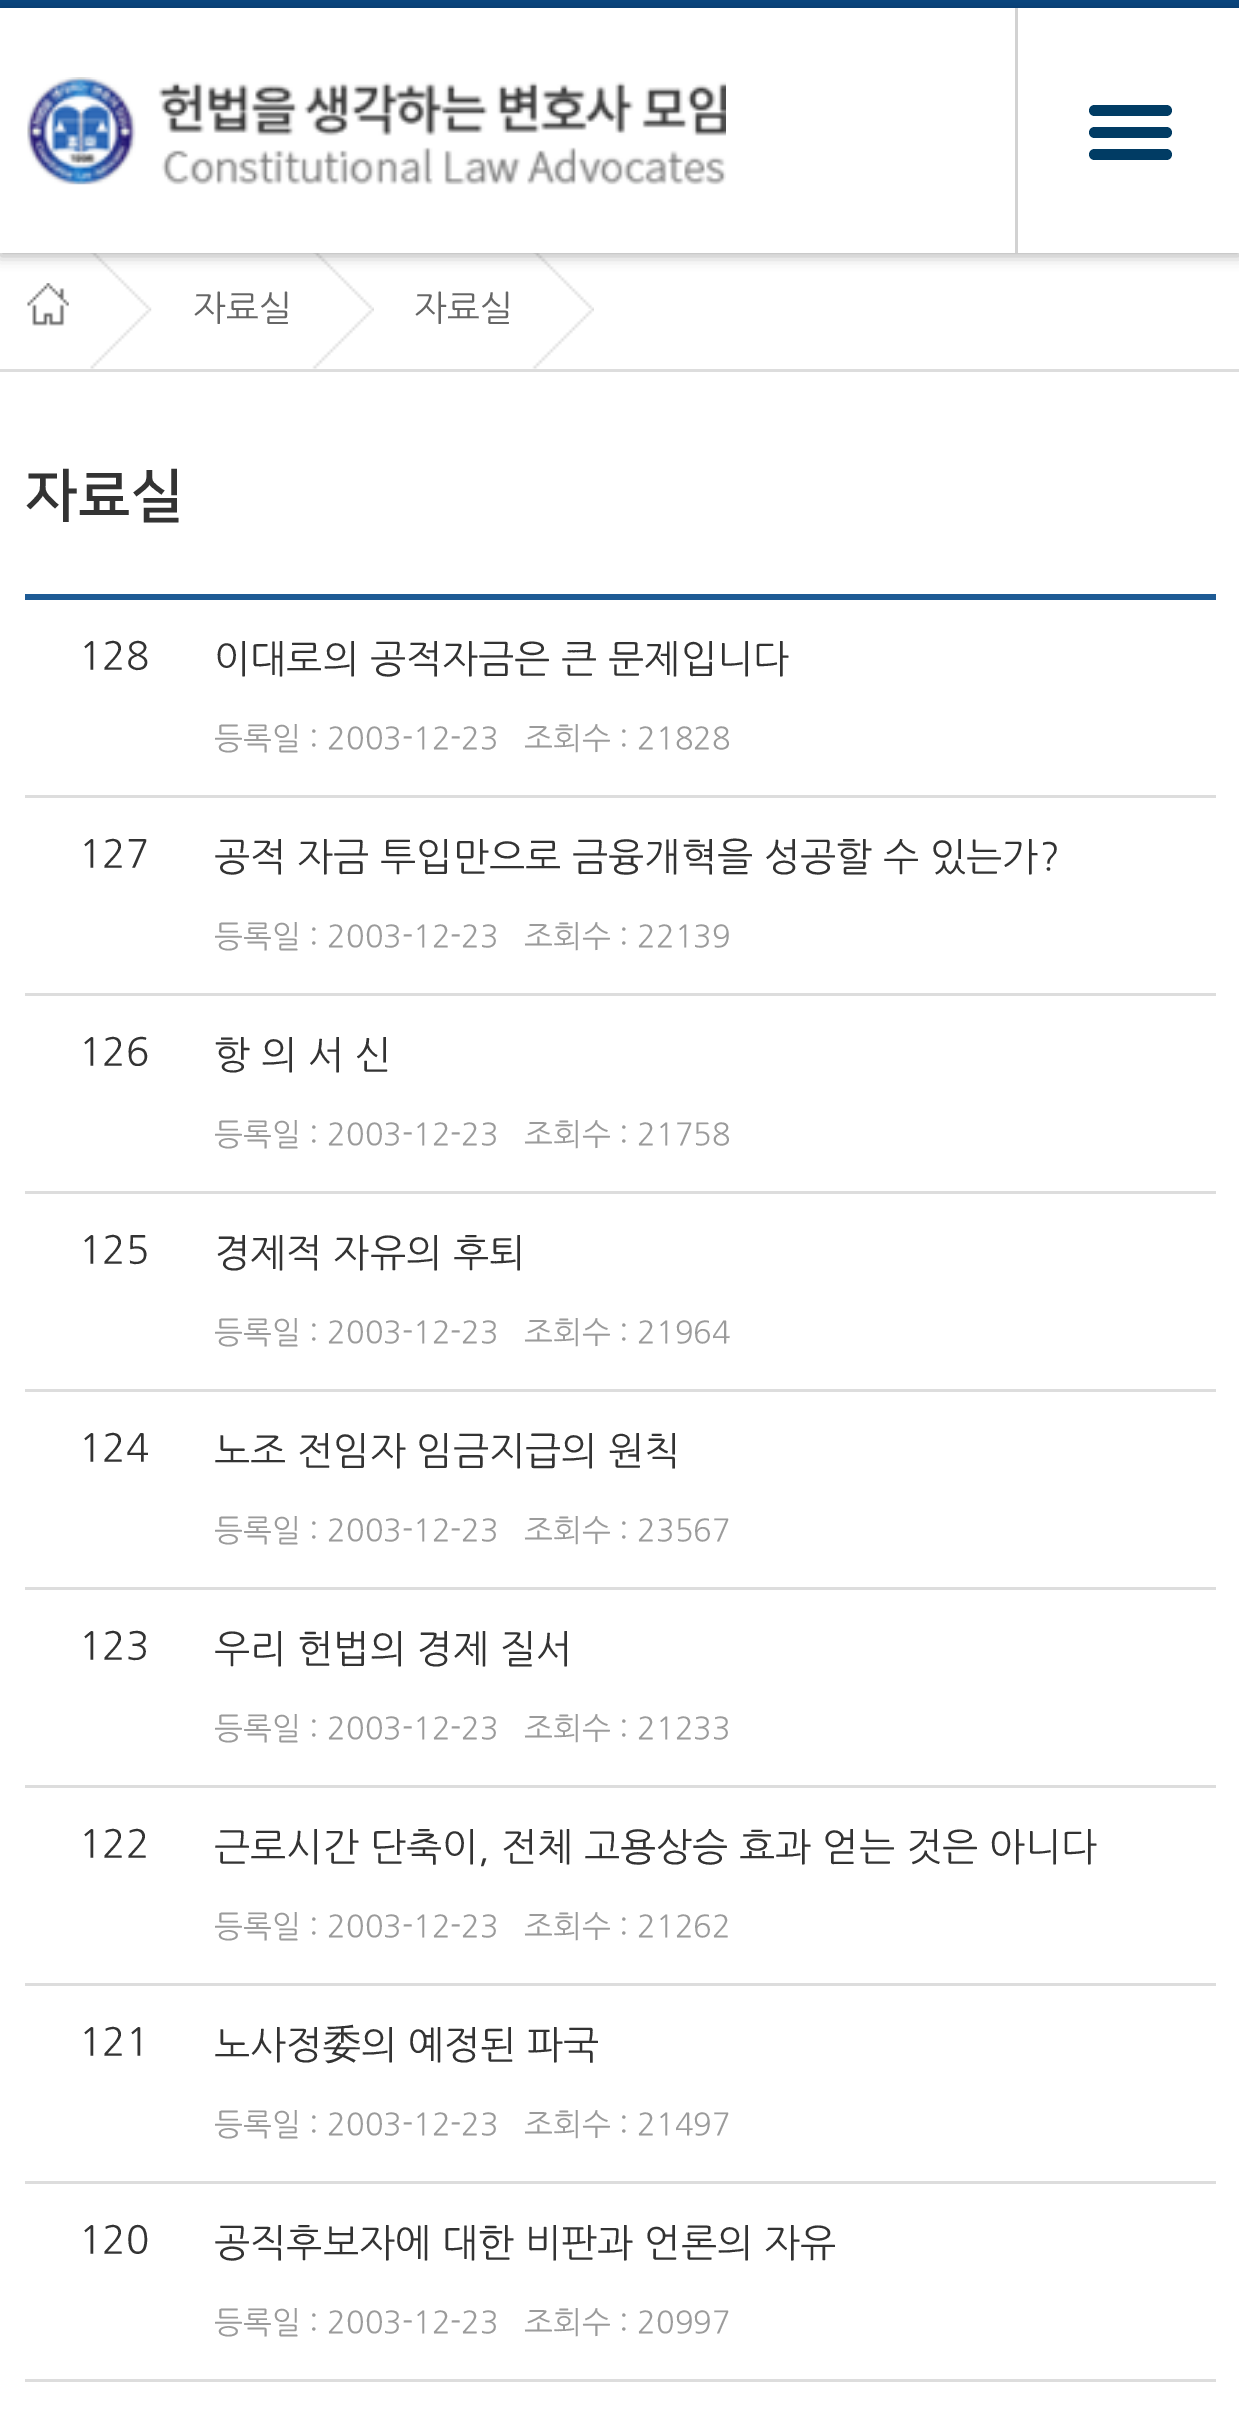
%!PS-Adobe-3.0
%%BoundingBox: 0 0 1239 2431
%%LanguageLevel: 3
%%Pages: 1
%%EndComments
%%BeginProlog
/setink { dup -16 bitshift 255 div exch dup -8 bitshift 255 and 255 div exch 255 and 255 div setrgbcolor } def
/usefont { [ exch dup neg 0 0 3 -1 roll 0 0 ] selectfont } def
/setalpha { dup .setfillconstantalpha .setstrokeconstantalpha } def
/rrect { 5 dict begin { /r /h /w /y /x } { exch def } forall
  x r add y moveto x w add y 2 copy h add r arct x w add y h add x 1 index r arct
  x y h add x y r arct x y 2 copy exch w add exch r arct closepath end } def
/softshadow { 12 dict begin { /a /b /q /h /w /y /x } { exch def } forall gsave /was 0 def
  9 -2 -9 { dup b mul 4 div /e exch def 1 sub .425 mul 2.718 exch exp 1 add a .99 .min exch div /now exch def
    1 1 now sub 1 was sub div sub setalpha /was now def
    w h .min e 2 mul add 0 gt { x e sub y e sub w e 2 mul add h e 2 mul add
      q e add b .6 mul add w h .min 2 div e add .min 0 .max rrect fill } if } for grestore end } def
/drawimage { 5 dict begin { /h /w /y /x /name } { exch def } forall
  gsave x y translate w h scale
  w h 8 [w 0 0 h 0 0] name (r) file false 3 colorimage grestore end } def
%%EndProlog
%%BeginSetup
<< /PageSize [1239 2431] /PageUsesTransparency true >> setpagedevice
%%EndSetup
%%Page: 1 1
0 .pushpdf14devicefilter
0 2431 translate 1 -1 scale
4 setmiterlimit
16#FFFFFF setink
0 0 1239 2431 rectfill
16#09477F setink
0 0 1239 8 rectfill
(img2.raw) 88 253 64 116 drawimage
(img4.raw) 310 253 64 116 drawimage
(img5.raw) 530 253 64 116 drawimage
gsave
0 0 moveto 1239 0 lineto 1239 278 lineto 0 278 lineto closepath 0 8 moveto 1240 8 lineto 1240 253 lineto 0 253 lineto closepath eoclip newpath
16#000000 setink
0 11 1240 245 0 7 0.3 softshadow
grestore
(img1.raw) 27 77 699 108 drawimage
16#D2D2D2 setink
1015 8 3 245 rectfill
16#013C64 setink
1089 127 83 11 5.5 rrect fill
1089 105 83 11 5.5 rrect fill
1089 149 83 11 5.5 rrect fill
16#DDDDDD setink
0 369 1239 3 rectfill
(img3.raw) 27 283 42 43 drawimage
/NanumGothic-Regular 35 usefont
16#666666 setink
193 319 moveto (자료실) show
414 319 moveto (자료실) show
/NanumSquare-Bold 58 usefont
16#333333 setink
25 514 moveto (자료실) show
16#1E5B95 setink
25 594 1191 6 rectfill
16#DDDDDD setink
25 795 1191 3 rectfill
/NanumGothic-Regular 38.5 usefont
16#333333 setink
79 668 moveto (128) show
214 671 moveto (이대로의 공적자금은 큰 문제입니다) show
/NanumGothic-Regular 30.75 usefont
16#9B9B9B setink
214 748 moveto (등록일 : 2003-12-23) show
524 748 moveto (조회수 : 21828) show
16#DDDDDD setink
25 993 1191 3 rectfill
/NanumGothic-Regular 38.5 usefont
16#333333 setink
79 866 moveto (127) show
214 869 moveto (공적 자금 투입만으로 금융개혁을 성공할 수 있는가?) show
/NanumGothic-Regular 30.75 usefont
16#9B9B9B setink
214 946 moveto (등록일 : 2003-12-23) show
524 946 moveto (조회수 : 22139) show
16#DDDDDD setink
25 1191 1191 3 rectfill
/NanumGothic-Regular 38.5 usefont
16#333333 setink
79 1064 moveto (126) show
214 1067 moveto (항 의 서 신) show
/NanumGothic-Regular 30.75 usefont
16#9B9B9B setink
214 1144 moveto (등록일 : 2003-12-23) show
524 1144 moveto (조회수 : 21758) show
16#DDDDDD setink
25 1389 1191 3 rectfill
/NanumGothic-Regular 38.5 usefont
16#333333 setink
79 1262 moveto (125) show
214 1265 moveto (경제적 자유의 후퇴) show
/NanumGothic-Regular 30.75 usefont
16#9B9B9B setink
214 1342 moveto (등록일 : 2003-12-23) show
524 1342 moveto (조회수 : 21964) show
16#DDDDDD setink
25 1587 1191 3 rectfill
/NanumGothic-Regular 38.5 usefont
16#333333 setink
79 1460 moveto (124) show
214 1463 moveto (노조 전임자 임금지급의 원칙) show
/NanumGothic-Regular 30.75 usefont
16#9B9B9B setink
214 1540 moveto (등록일 : 2003-12-23) show
524 1540 moveto (조회수 : 23567) show
16#DDDDDD setink
25 1785 1191 3 rectfill
/NanumGothic-Regular 38.5 usefont
16#333333 setink
79 1658 moveto (123) show
214 1661 moveto (우리 헌법의 경제 질서) show
/NanumGothic-Regular 30.75 usefont
16#9B9B9B setink
214 1738 moveto (등록일 : 2003-12-23) show
524 1738 moveto (조회수 : 21233) show
16#DDDDDD setink
25 1983 1191 3 rectfill
/NanumGothic-Regular 38.5 usefont
16#333333 setink
79 1856 moveto (122) show
214 1859 moveto (근로시간 단축이, 전체 고용상승 효과 얻는 것은 아니다) show
/NanumGothic-Regular 30.75 usefont
16#9B9B9B setink
214 1936 moveto (등록일 : 2003-12-23) show
524 1936 moveto (조회수 : 21262) show
16#DDDDDD setink
25 2181 1191 3 rectfill
/NanumGothic-Regular 38.5 usefont
16#333333 setink
79 2054 moveto (121) show
214 2057 moveto (노사정) show
/WenQuanYiZenHei-Medium 38.5 usefont
323 2057 moveto (委) show
/NanumGothic-Regular 38.5 usefont
361 2057 moveto (의 예정된 파국) show
/NanumGothic-Regular 30.75 usefont
16#9B9B9B setink
214 2134 moveto (등록일 : 2003-12-23) show
524 2134 moveto (조회수 : 21497) show
16#DDDDDD setink
25 2379 1191 3 rectfill
/NanumGothic-Regular 38.5 usefont
16#333333 setink
79 2252 moveto (120) show
214 2255 moveto (공직후보자에 대한 비판과 언론의 자유) show
/NanumGothic-Regular 30.75 usefont
16#9B9B9B setink
214 2332 moveto (등록일 : 2003-12-23) show
524 2332 moveto (조회수 : 20997) show
.poppdf14devicefilter showpage
%%EOF
